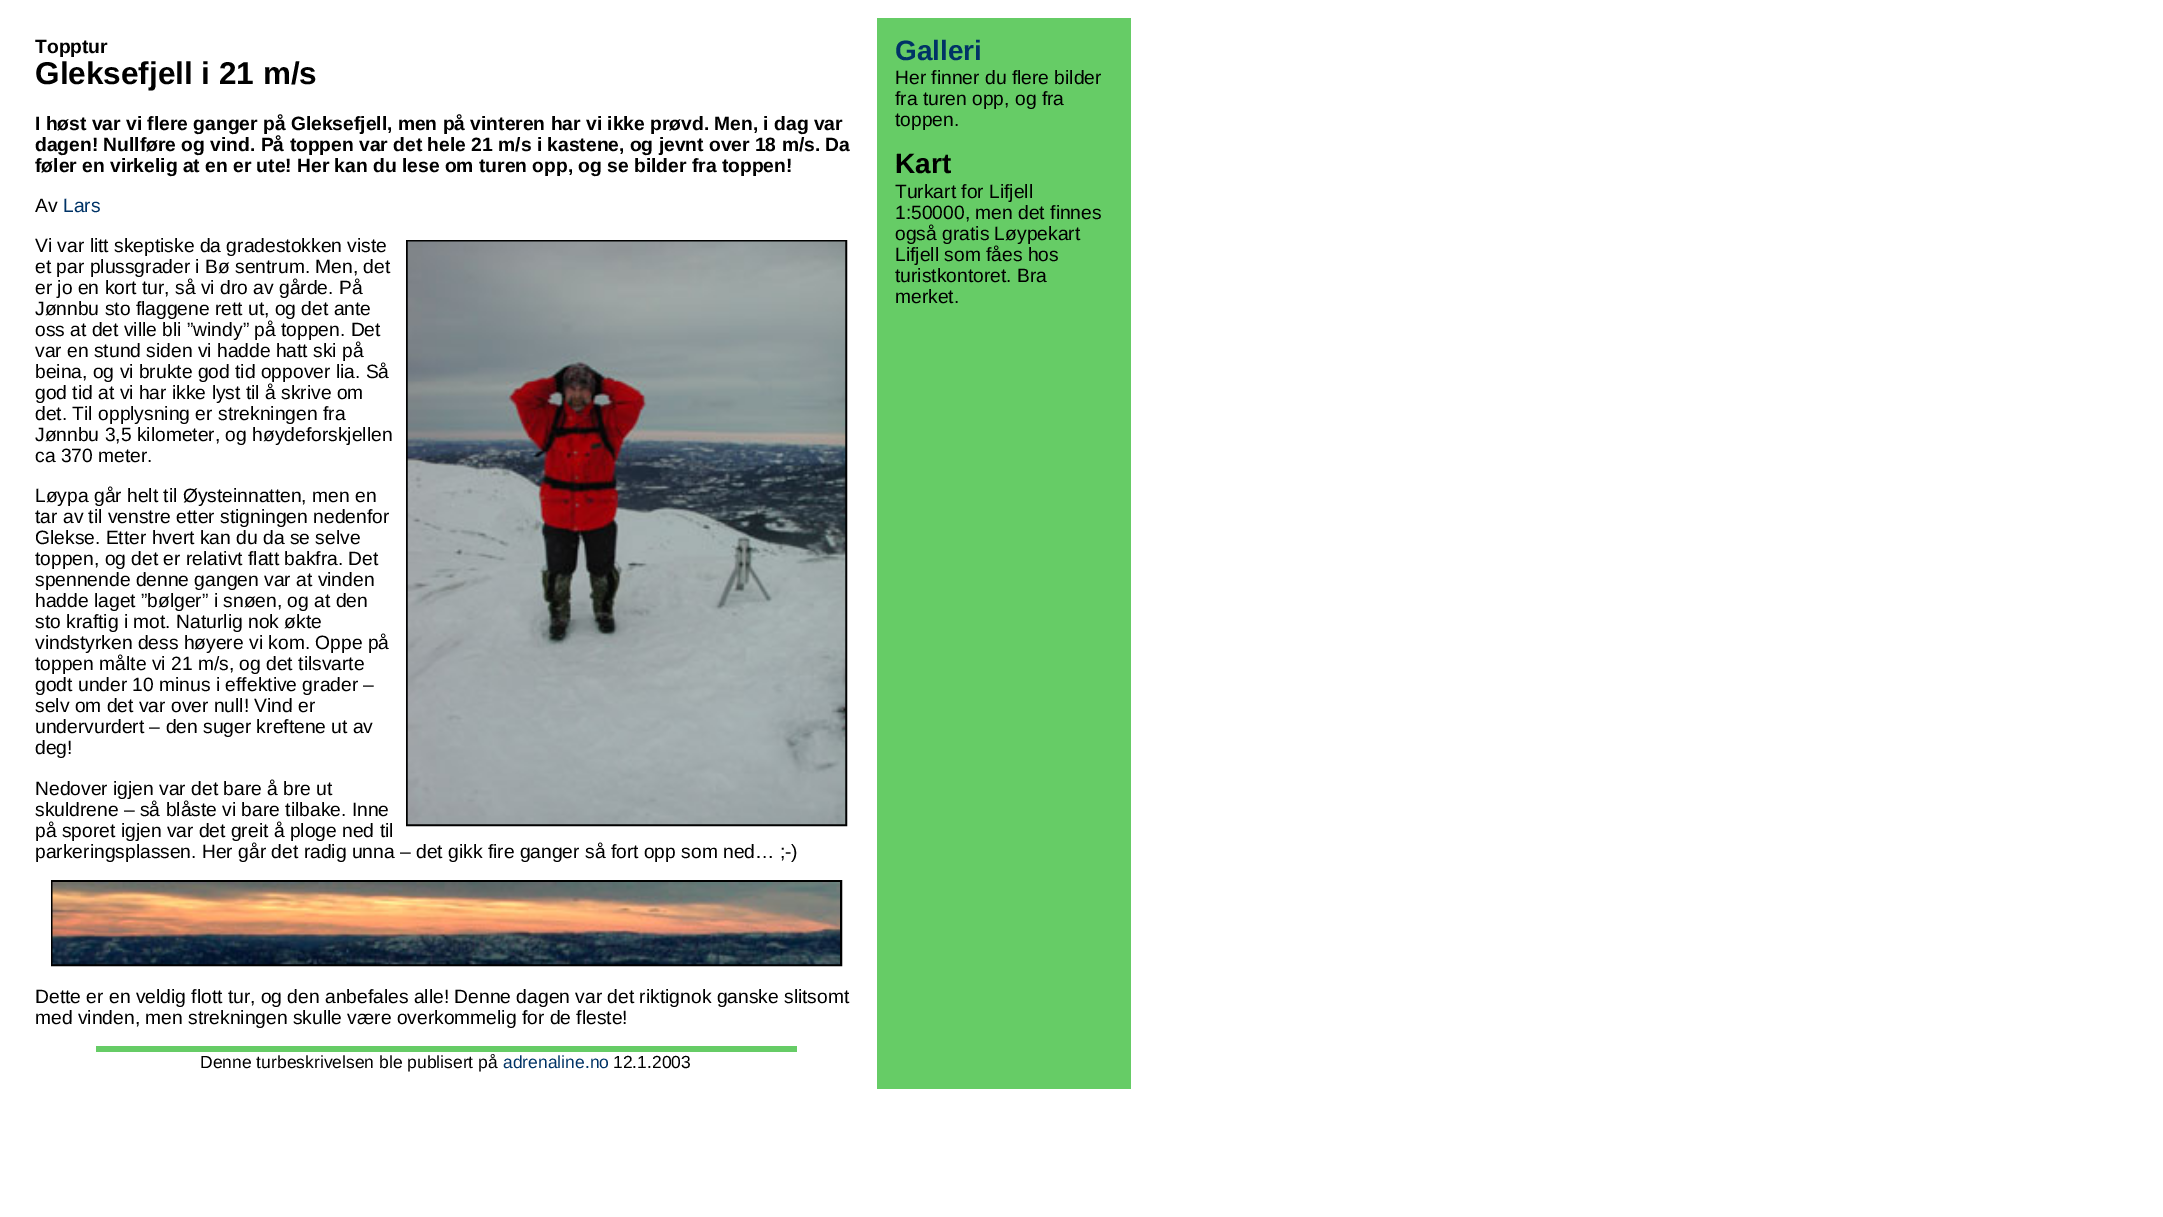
%!PS-Adobe-3.0
%%BoundingBox: 0 0 2163 1217
%%LanguageLevel: 3
%%Pages: 1
%%EndComments
%%BeginProlog
/setink { dup -16 bitshift 255 div exch dup -8 bitshift 255 and 255 div exch 255 and 255 div setrgbcolor } def
/usefont { [ exch dup neg 0 0 3 -1 roll 0 0 ] selectfont } def
/drawimage { 5 dict begin { /h /w /y /x /name } { exch def } forall
  gsave x y translate w h scale
  w h 8 [w 0 0 h 0 0] name (r) file false 3 colorimage grestore end } def
%%EndProlog
%%BeginSetup
<< /PageSize [2163 1217] >> setpagedevice
%%EndSetup
%%Page: 1 1
0 1217 translate 1 -1 scale
4 setmiterlimit
16#FFFFFF setink
0 0 2163 1217 rectfill
/LiberationSans-Bold 19.25 usefont
16#000000 setink
35 53 moveto (Topptur) show
/LiberationSans-Bold 31.5 usefont
35 84 moveto (Gleksefjell i 21 m/s) show
/LiberationSans-Bold 19.25 usefont
[
    [(I høst var vi flere ganger på Gleksefjell, men på vinteren har vi ikke prøvd. Men, i dag var) 35 130]
    [(dagen! Nullføre og vind. På toppen var det hele 21 m/s i kastene, og jevnt over 18 m/s. Da) 35 151]
    [(føler en virkelig at en er ute! Her kan du lese om turen opp, og se bilder fra toppen!) 35 172]
] { aload pop moveto show } forall
/LiberationSans-Regular 19.25 usefont
35 212 moveto (Av) show
16#003366 setink
63 212 moveto (Lars) show
16#000000 setink
35 252 moveto (Vi var litt skeptiske da gradestokken viste) show
2 setlinewidth
407 241 439 584 rectstroke
(img1.raw) 407 241 439 584 drawimage
[
    [(et par plussgrader i Bø sentrum. Men, det) 35 273]
    [(er jo en kort tur, så vi dro av gårde. På) 35 294]
    [(Jønnbu sto flaggene rett ut, og det ante) 35 315]
    [(oss at det ville bli ”windy” på toppen. Det) 35 336]
    [(var en stund siden vi hadde hatt ski på) 35 357]
    [(beina, og vi brukte god tid oppover lia. Så) 35 378]
    [(god tid at vi har ikke lyst til å skrive om) 35 399]
    [(det. Til opplysning er strekningen fra) 35 420]
    [(Jønnbu 3,5 kilometer, og høydeforskjellen) 35 441]
    [(ca 370 meter.) 35 462]
    [(Løypa går helt til Øysteinnatten, men en) 35 502]
    [(tar av til venstre etter stigningen nedenfor) 35 523]
    [(Glekse. Etter hvert kan du da se selve) 35 544]
    [(toppen, og det er relativt flatt bakfra. Det) 35 565]
    [(spennende denne gangen var at vinden) 35 586]
    [(hadde laget ”bølger” i snøen, og at den) 35 607]
    [(sto kraftig i mot. Naturlig nok økte) 35 628]
    [(vindstyrken dess høyere vi kom. Oppe på) 35 649]
    [(toppen målte vi 21 m/s, og det tilsvarte) 35 670]
    [(godt under 10 minus i effektive grader –) 35 691]
    [(selv om det var over null! Vind er) 35 712]
    [(undervurdert – den suger kreftene ut av) 35 733]
    [(deg!) 35 754]
    [(Nedover igjen var det bare å bre ut) 35 795]
    [(skuldrene – så blåste vi bare tilbake. Inne) 35 816]
    [(på sporet igjen var det greit å ploge ned til) 35 837]
    [(parkeringsplassen. Her går det radig unna – det gikk fire ganger så fort opp som ned… ;-\)) 35 858]
] { aload pop moveto show } forall
52 881 789 84 rectstroke
(img2.raw) 52 882 788 83 drawimage
35 1003 moveto (Dette er en veldig flott tur, og den anbefales alle! Denne dagen var det riktignok ganske slitsomt) show
35 1024 moveto (med vinden, men strekningen skulle være overkommelig for de fleste!) show
16#66CC66 setink
96 1046 701 6 rectfill
/LiberationSans-Regular 17.5 usefont
16#000000 setink
200 1068 moveto (Denne turbeskrivelsen ble publisert på) show
16#003366 setink
503 1068 moveto (adrenaline.no) show
16#000000 setink
613 1068 moveto (12.1.2003) show
16#66CC66 setink
877 18 254 1071 rectfill
/LiberationSans-Bold 28 usefont
16#003366 setink
895 60 moveto (Galleri) show
/LiberationSans-Regular 19.25 usefont
16#000000 setink
[
    [(Her finner du flere bilder) 895 84]
    [(fra turen opp, og fra) 895 105]
    [(toppen.) 895 126]
] { aload pop moveto show } forall
/LiberationSans-Bold 28 usefont
895 173 moveto (Kart) show
/LiberationSans-Regular 19.25 usefont
[
    [(Turkart for Lifjell) 895 198]
    [(1:50000, men det finnes) 895 219]
    [(også gratis Løypekart) 895 240]
    [(Lifjell som fåes hos) 895 261]
    [(turistkontoret. Bra) 895 282]
    [(merket.) 895 303]
] { aload pop moveto show } forall
showpage
%%EOF
